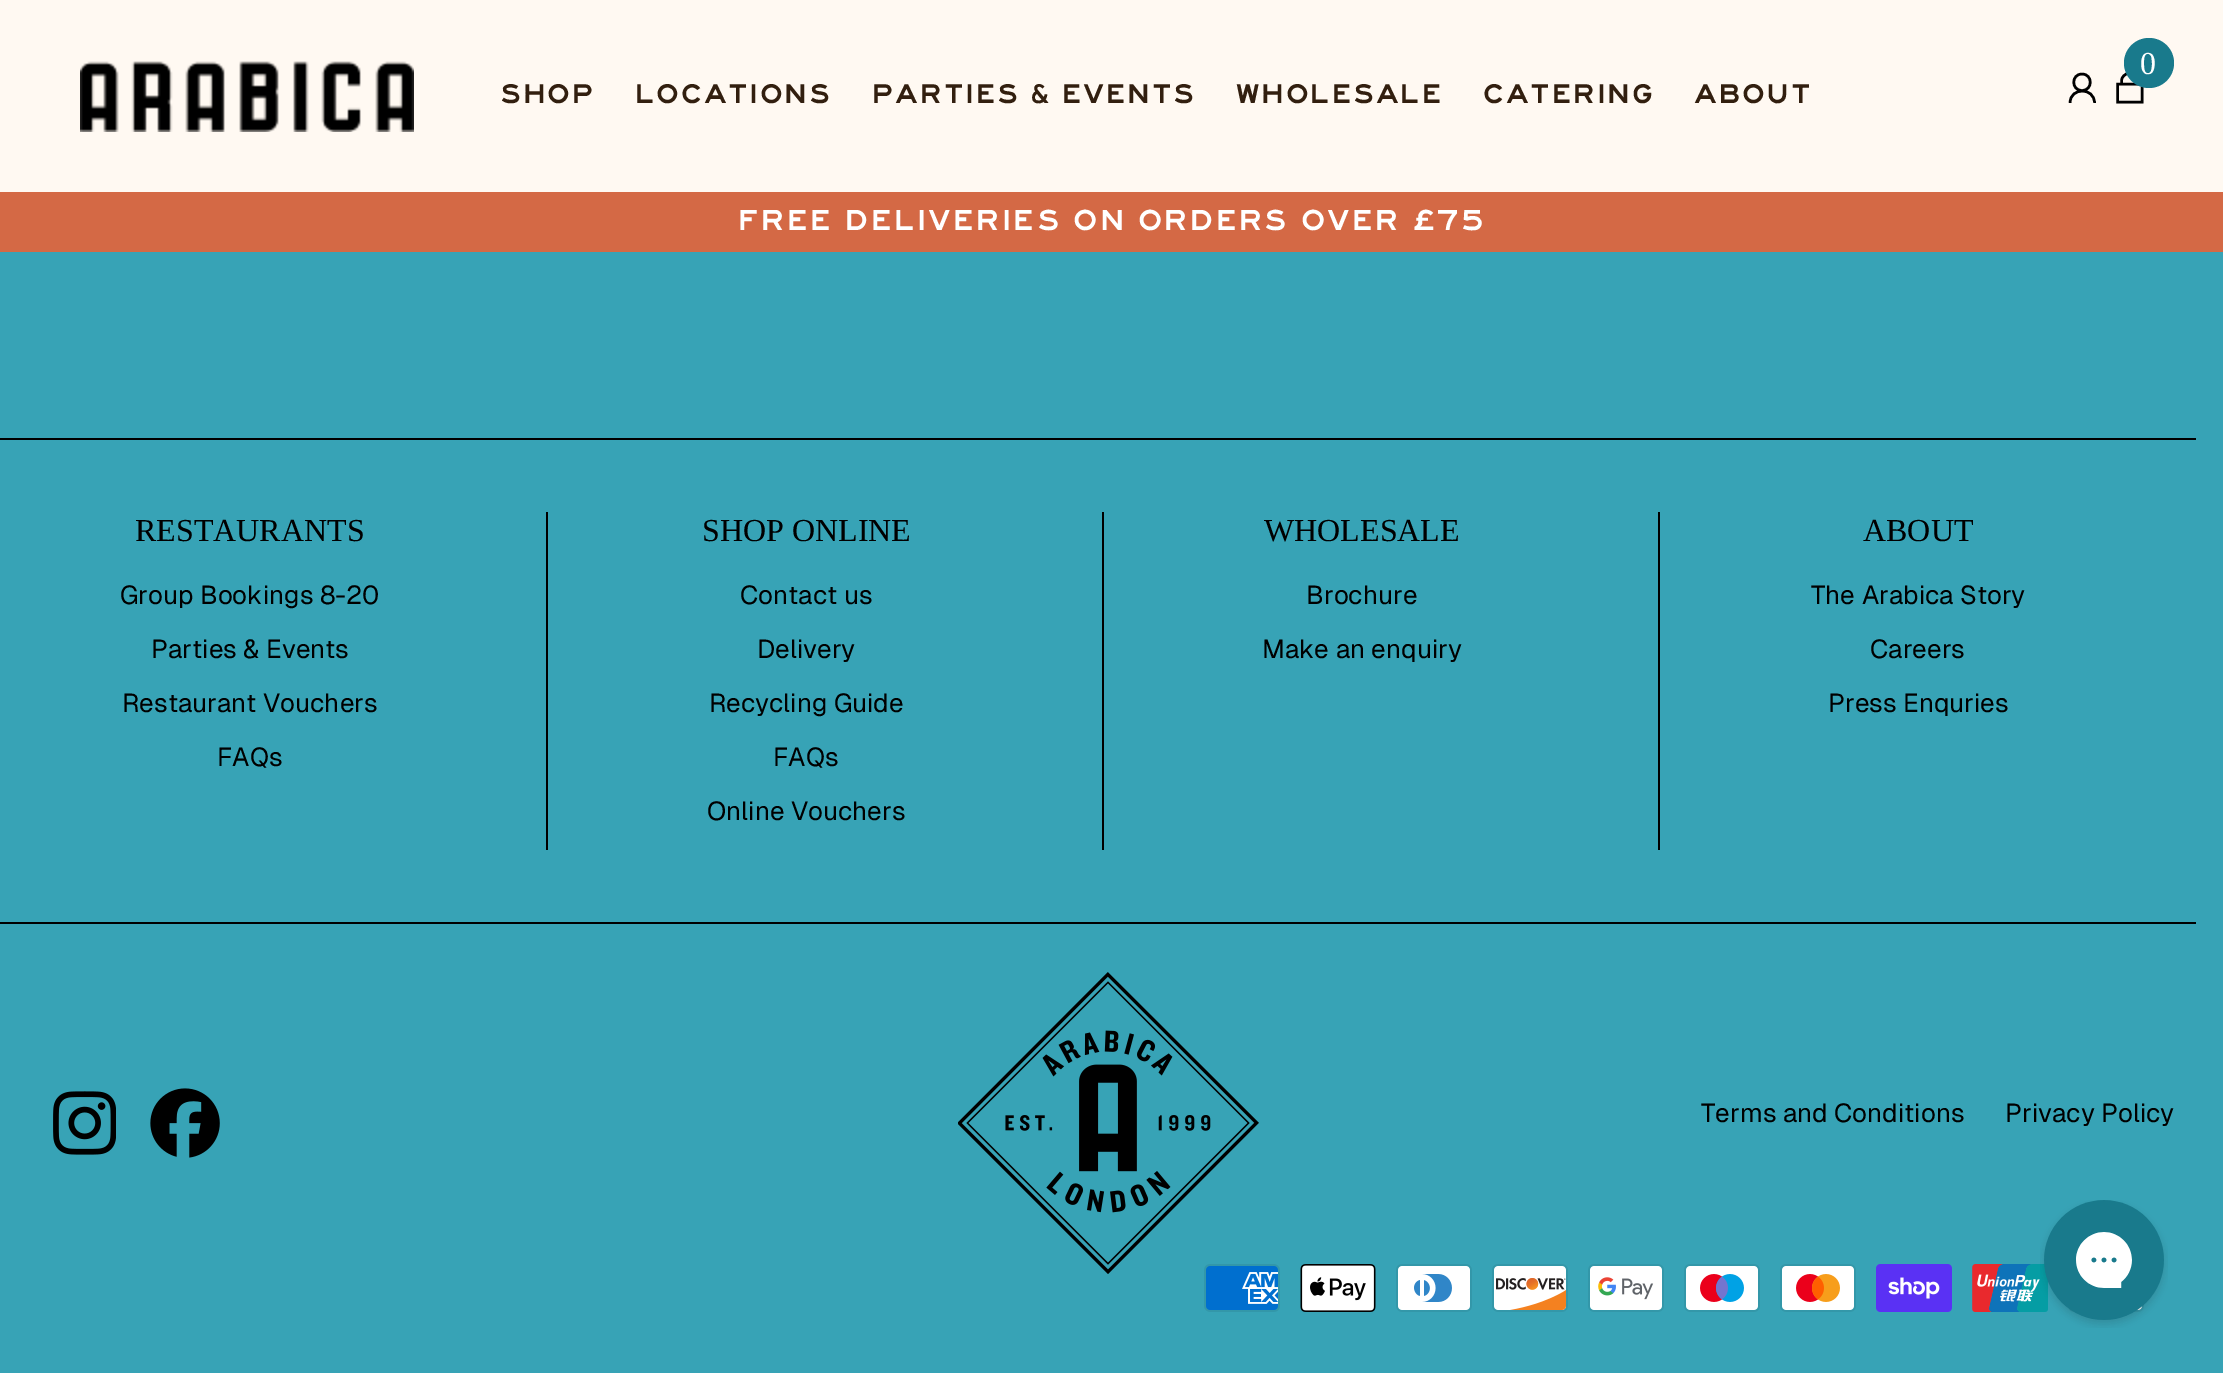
%!PS-Adobe-3.0
%%BoundingBox: 0 0 2223 1373
%%LanguageLevel: 3
%%Pages: 1
%%EndComments
%%BeginProlog
/setink { dup -16 bitshift 255 div exch dup -8 bitshift 255 and 255 div exch 255 and 255 div setrgbcolor } def
/usefont { [ exch dup neg 0 0 3 -1 roll 0 0 ] selectfont } def
/disc { newpath 0 360 arc closepath } def
/drawimage { 5 dict begin { /h /w /y /x /name } { exch def } forall
  gsave x y translate w h scale
  w h 8 [w 0 0 h 0 0] name (r) file false 3 colorimage grestore end } def
%%EndProlog
%%BeginSetup
<< /PageSize [2223 1373] >> setpagedevice
%%EndSetup
%%Page: 1 1
0 1373 translate 1 -1 scale
4 setmiterlimit
16#37A3B6 setink
0 0 2223 1373 rectfill
16#FFF9F2 setink
0 0 2223 192 rectfill
16#000000 setink
2.5 setlinewidth
2138 81.5 moveto 2138 84 lineto 2121.5 84 lineto 2121.5 82 2121.5 80 2122 78.5 curveto 2125.5 70 2138 72.5 2138 81.5 curveto closepath 2142 84 moveto 2117.5 84 lineto 2117.5 102 lineto 2142 102 lineto closepath stroke
16#197A8C setink
2149 63 25 disc fill
/LiberationSerif-Regular 32 usefont
16#FFFFFF setink
2140 74 moveto 1.7 0 (0) ashow
16#000000 setink
2082 90.5 moveto 2093 90.5 2093 74 2082 74 curveto 2071 74 2071 90.5 2082 90.5 curveto closepath 2070 103 moveto 2070 87 2094.5 87 2094.5 103 curveto stroke
(img1.raw) 80 61 334 71 drawimage
/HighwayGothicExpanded-Regular 28 usefont
16#321F0F setink
500 103 moveto 1.7 0 (SHOP) ashow
635 103 moveto 1.7 0 (LOCATIONS) ashow
872 103 moveto 1.7 0 (PARTIES & EVENTS) ashow
1236 103 moveto 1.7 0 (WHOLESALE) ashow
1483 103 moveto 1.7 0 (CATERING) ashow
1694 103 moveto 1.7 0 (ABOUT) ashow
16#D46945 setink
0 192 2223 60 rectfill
/HighwayGothicExpanded-Regular 30 usefont
16#FFFFFF setink
738 230 moveto 2.05 0 (FREE DELIVERIES ON ORDERS OVER £75) ashow
16#000000 setink
0 438 2196 2 rectfill
0 922 2196 2 rectfill
/LiberationSerif-Regular 32 usefont
135 541 moveto (RESTAURANTS) show
546 512 2 338 rectfill
/Geist-Regular 26 usefont
[
    [(Group Bookings 8-20) 120 604]
    [(Parties & Events) 151 658]
    [(Restaurant Vouchers) 122 712]
    [(FAQs) 217 766]
] { aload pop moveto show } forall
/LiberationSerif-Regular 32 usefont
702 541 moveto (SHOP ONLINE) show
1102 512 2 338 rectfill
/Geist-Regular 26 usefont
[
    [(Contact us) 740 604]
    [(Delivery) 757 658]
    [(Recycling Guide) 709 712]
    [(FAQs) 773 766]
    [(Online Vouchers) 707 820]
] { aload pop moveto show } forall
/LiberationSerif-Regular 32 usefont
1264 541 moveto (WHOLESALE) show
1658 512 2 338 rectfill
/Geist-Regular 26 usefont
1306 604 moveto (Brochure) show
1262 658 moveto (Make an enquiry) show
/LiberationSerif-Regular 32 usefont
1863 541 moveto (ABOUT) show
/Geist-Regular 26 usefont
[
    [(The Arabica Story) 1811 604]
    [(Careers) 1870 658]
    [(Press Enquries) 1828 712]
] { aload pop moveto show } forall
(img2.raw) 53 1091 63 64 drawimage
(img3.raw) 150 1088 70 70 drawimage
(img5.raw) 1204 1264 76 48 drawimage
(img4.raw) 958 972 301 302 drawimage
1701 1122 moveto (Terms and Conditions) show
2005 1122 moveto (Privacy Policy) show
(img6.raw) 1300 1264 76 48 drawimage
(img7.raw) 1396 1264 76 48 drawimage
(img8.raw) 1492 1264 76 48 drawimage
(img9.raw) 1588 1264 76 48 drawimage
(img10.raw) 1684 1264 76 48 drawimage
(img11.raw) 1780 1264 76 48 drawimage
(img12.raw) 1876 1264 76 48 drawimage
(img13.raw) 1972 1264 76 48 drawimage
(img14.raw) 2068 1304 76 8 drawimage
(img15.raw) 2040 1200 128 128 drawimage
showpage
%%EOF
